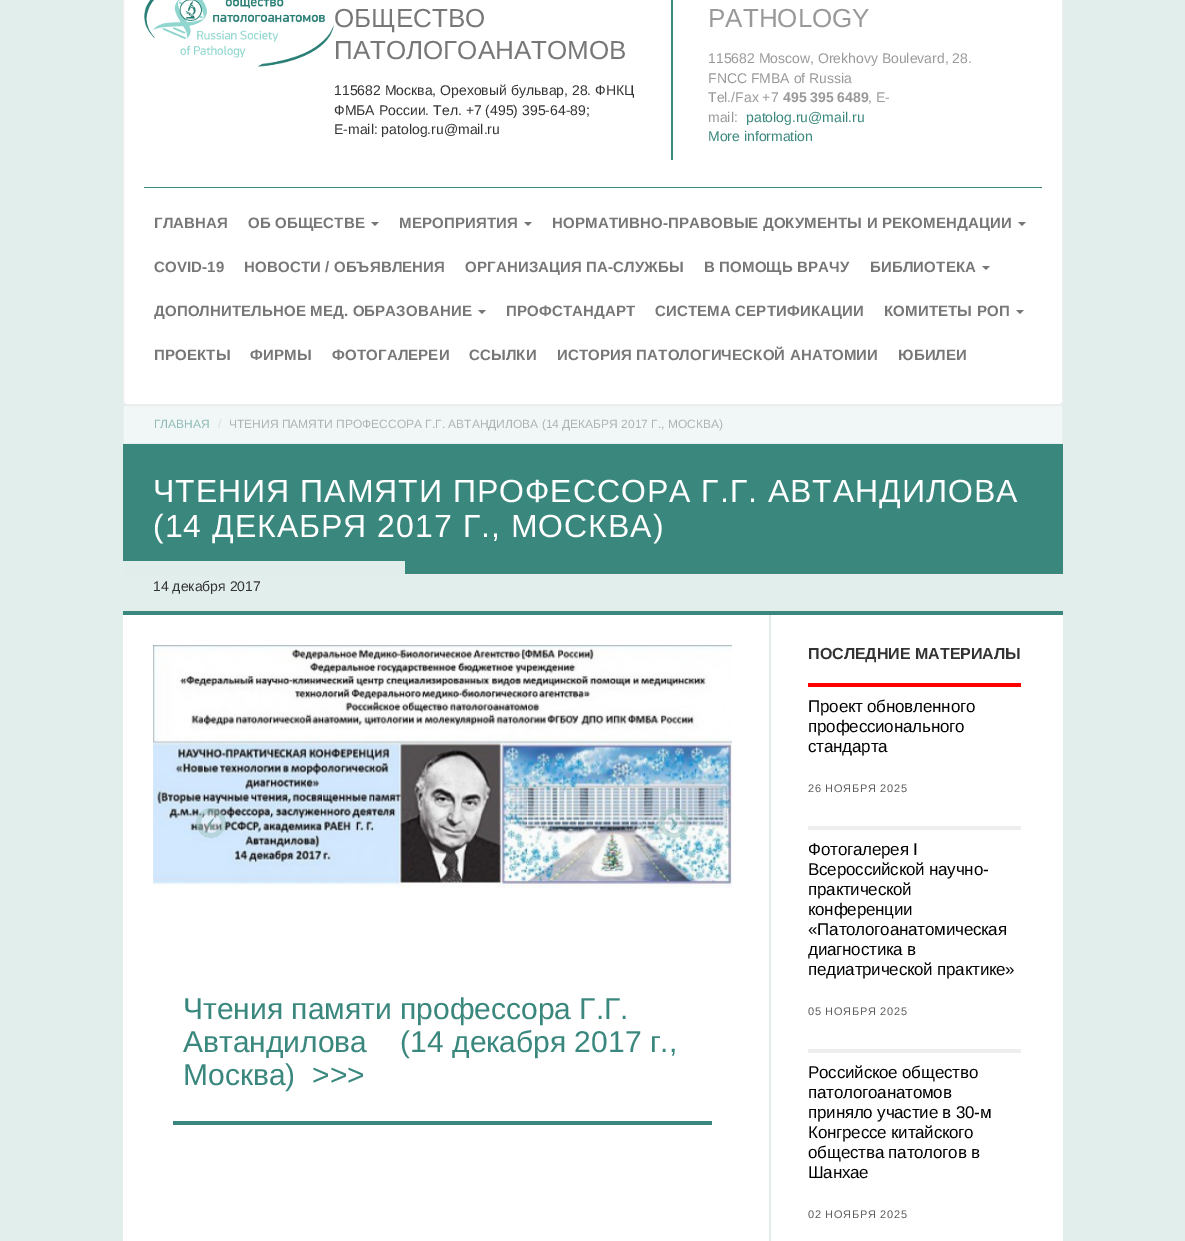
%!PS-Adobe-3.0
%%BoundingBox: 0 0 1185 1241
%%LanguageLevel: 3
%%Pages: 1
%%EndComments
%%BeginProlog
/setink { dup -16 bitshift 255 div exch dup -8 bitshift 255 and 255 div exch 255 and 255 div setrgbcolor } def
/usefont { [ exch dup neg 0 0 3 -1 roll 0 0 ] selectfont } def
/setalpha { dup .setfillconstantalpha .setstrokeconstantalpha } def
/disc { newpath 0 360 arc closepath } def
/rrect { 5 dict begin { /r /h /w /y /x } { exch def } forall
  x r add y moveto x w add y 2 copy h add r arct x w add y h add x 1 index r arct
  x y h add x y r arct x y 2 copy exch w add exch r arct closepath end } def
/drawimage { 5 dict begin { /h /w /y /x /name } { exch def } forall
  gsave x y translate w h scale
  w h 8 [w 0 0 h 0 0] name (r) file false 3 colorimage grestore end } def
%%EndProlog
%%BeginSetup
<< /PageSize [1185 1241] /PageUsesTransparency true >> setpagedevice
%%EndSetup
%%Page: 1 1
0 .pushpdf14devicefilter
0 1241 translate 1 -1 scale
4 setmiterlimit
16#E2EEEC setink
0 0 1185 1241 rectfill
16#FFFFFF setink
123.5 -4.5 939 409 3.5 rrect gsave fill grestore
16#EEEEEE setink
stroke
(img1.raw) 144 0 190 67 drawimage
16#39877D setink
671 0 2 160 rectfill
/LiberationSans-Regular 26 usefont
16#777777 setink
334 27 moveto (ОБЩЕСТВО) show
334 59 moveto (ПАТОЛОГОАНАТОМОВ) show
/LiberationSans-Regular 14 usefont
16#333333 setink
[
    [(115682 Москва, Ореховый бульвар, 28. ФНКЦ) 334 95]
    [(ФМБА России. Тел. +7 \(495\) 395-64-89;) 334 115]
    [(E-mail: patolog.ru@mail.ru) 334 134]
] { aload pop moveto show } forall
/LiberationSans-Regular 26 usefont
16#999999 setink
708 27 moveto (PATHOLOGY) show
/LiberationSans-Regular 14 usefont
[
    [(115682 Moscow, Orekhovy Boulevard, 28.) 708 63]
    [(FNCC FMBA of Russia) 708 83]
    [(Tel./Fax +7) 708 102]
] { aload pop moveto show } forall
/LiberationSans-Bold 14 usefont
783 102 moveto (495 395 6489) show
/LiberationSans-Regular 14 usefont
868 102 moveto (, E-) show
708 122 moveto (mail:) show
16#39877D setink
746 122 moveto (patolog.ru@mail.ru) show
708 141 moveto (More information) show
144 187 898 1 rectfill
/LiberationSans-Bold 15 usefont
16#777777 setink
154 228 moveto 0.15 0 (ГЛАВНАЯ) ashow
248 228 moveto 0.15 0 (ОБ ОБЩЕСТВЕ) ashow
371 222 moveto 379 222 lineto 375 226 lineto closepath fill
399 228 moveto 0.15 0 (МЕРОПРИЯТИЯ) ashow
524 222 moveto 532 222 lineto 528 226 lineto closepath fill
552 228 moveto 0.15 0 (НОРМАТИВНО-ПРАВОВЫЕ ДОКУМЕНТЫ И РЕКОМЕНДАЦИИ) ashow
1018 222 moveto 1026 222 lineto 1022 226 lineto closepath fill
154 272 moveto 0.15 0 (COVID-19) ashow
244 272 moveto 0.15 0 (НОВОСТИ / ОБЪЯВЛЕНИЯ) ashow
465 272 moveto 0.15 0 (ОРГАНИЗАЦИЯ ПА-СЛУЖБЫ) ashow
704 272 moveto 0.15 0 (В ПОМОЩЬ ВРАЧУ) ashow
870 272 moveto 0.15 0 (БИБЛИОТЕКА) ashow
982 266 moveto 990 266 lineto 986 270 lineto closepath fill
154 316 moveto 0.15 0 (ДОПОЛНИТЕЛЬНОЕ МЕД. ОБРАЗОВАНИЕ) ashow
478 310 moveto 486 310 lineto 482 314 lineto closepath fill
506 316 moveto 0.15 0 (ПРОФСТАНДАРТ) ashow
655 316 moveto 0.15 0 (СИСТЕМА СЕРТИФИКАЦИИ) ashow
884 316 moveto 0.15 0 (КОМИТЕТЫ РОП) ashow
1016 310 moveto 1024 310 lineto 1020 314 lineto closepath fill
154 360 moveto 0.15 0 (ПРОЕКТЫ) ashow
250 360 moveto 0.15 0 (ФИРМЫ) ashow
332 360 moveto 0.15 0 (ФОТОГАЛЕРЕИ) ashow
469 360 moveto 0.15 0 (ССЫЛКИ) ashow
557 360 moveto 0.15 0 (ИСТОРИЯ ПАТОЛОГИЧЕСКОЙ АНАТОМИИ) ashow
898 360 moveto 0.15 0 (ЮБИЛЕИ) ashow
[
    [124 406 938 37 16#F1F7F6]
    [1062 405 1 39 16#E8EEED]
    [123 443 940 1 16#E8EEED]
    [123 405 1 39 16#E8EEED]
] { aload pop setink rectfill } forall
/LiberationSans-Regular 12 usefont
16#8EBBB5 setink
154 428 moveto (ГЛАВНАЯ) show
16#D7DDDC setink
218 428 moveto (/) show
16#ADB3B2 setink
229 428 moveto (ЧТЕНИЯ ПАМЯТИ ПРОФЕССОРА Г.Г. АВТАНДИЛОВА \(14 ДЕКАБРЯ 2017 Г., МОСКВА\)) show
16#39877D setink
123 444 940 130 rectfill
16#EEEEEE setink
405 574 658 1 rectfill
/LiberationSans-Regular 32 usefont
16#FFFFFF setink
153 502 moveto 1 0 (ЧТЕНИЯ ПАМЯТИ ПРОФЕССОРА Г.Г. АВТАНДИЛОВА) ashow
153 537 moveto 1 0 (\(14 ДЕКАБРЯ 2017 Г., МОСКВА\)) ashow
[
    [123 615 940 626 16#FFFFFF]
    [123 611 940 4 16#39877D]
    [123 561 282 13 16#E1EDEB]
] { aload pop setink rectfill } forall
/LiberationSans-Regular 14 usefont
16#333333 setink
153 591 moveto (14 декабря 2017) show
(img2.raw) 153 645 579 243 drawimage
0.35 setalpha
16#FFFFFF setink
211 823 15 disc fill
0.25 setalpha
16#39877D setink
5 setlinewidth
211 823 12.5 disc stroke
/LiberationSerif-Regular 30 usefont
1 setalpha
16#7BA7A7 setink
206 831 moveto (‹) show
0.35 setalpha
16#FFFFFF setink
674 823 15 disc fill
0.25 setalpha
16#39877D setink
674 823 12.5 disc stroke
1 setalpha
16#7BADAC setink
669 831 moveto (›) show
16#39877D setink
173 1121 539 4 rectfill
/LiberationSans-Regular 30 usefont
[
    [(Чтения памяти профессора Г.Г.) 183 1019]
    [(Автандилова    \(14 декабря 2017 г.,) 183 1052]
    [(Москва\)  >>>) 183 1085]
] { aload pop moveto show } forall
16#E1EDEB setink
769 615 2 626 rectfill
/LiberationSans-Bold 16 usefont
16#333333 setink
808 659 moveto (ПОСЛЕДНИЕ МАТЕРИАЛЫ) show
16#FF0000 setink
808 683 213 4 rectfill
/LiberationSans-Regular 17 usefont
16#000000 setink
808 712 moveto -0.2 0 (Проект обновленного) ashow
808 732 moveto -0.2 0 (профессионального) ashow
808 752 moveto -0.2 0 (стандарта) ashow
/LiberationSans-Regular 11 usefont
16#5C5C5C setink
808 792 moveto 0.7 0 (26 НОЯБРЯ 2025) ashow
16#EEEEEE setink
808 826 213 4 rectfill
/LiberationSans-Regular 17 usefont
16#000000 setink
808 855 moveto -0.2 0 (Фотогалерея I) ashow
808 875 moveto -0.2 0 (Всероссийской научно-) ashow
808 895 moveto -0.2 0 (практической) ashow
808 915 moveto -0.2 0 (конференции) ashow
808 935 moveto -0.2 0 («Патологоанатомическая) ashow
808 955 moveto -0.2 0 (диагностика в) ashow
808 975 moveto -0.2 0 (педиатрической практике») ashow
/LiberationSans-Regular 11 usefont
16#5C5C5C setink
808 1015 moveto 0.7 0 (05 НОЯБРЯ 2025) ashow
16#EEEEEE setink
808 1049 213 4 rectfill
/LiberationSans-Regular 17 usefont
16#000000 setink
808 1078 moveto -0.2 0 (Российское общество) ashow
808 1098 moveto -0.2 0 (патологоанатомов) ashow
808 1118 moveto -0.2 0 (приняло участие в 30-м) ashow
808 1138 moveto -0.2 0 (Конгрессе китайского) ashow
808 1158 moveto -0.2 0 (общества патологов в) ashow
808 1178 moveto -0.2 0 (Шанхае) ashow
/LiberationSans-Regular 11 usefont
16#5C5C5C setink
808 1218 moveto 0.7 0 (02 НОЯБРЯ 2025) ashow
.poppdf14devicefilter showpage
%%EOF
